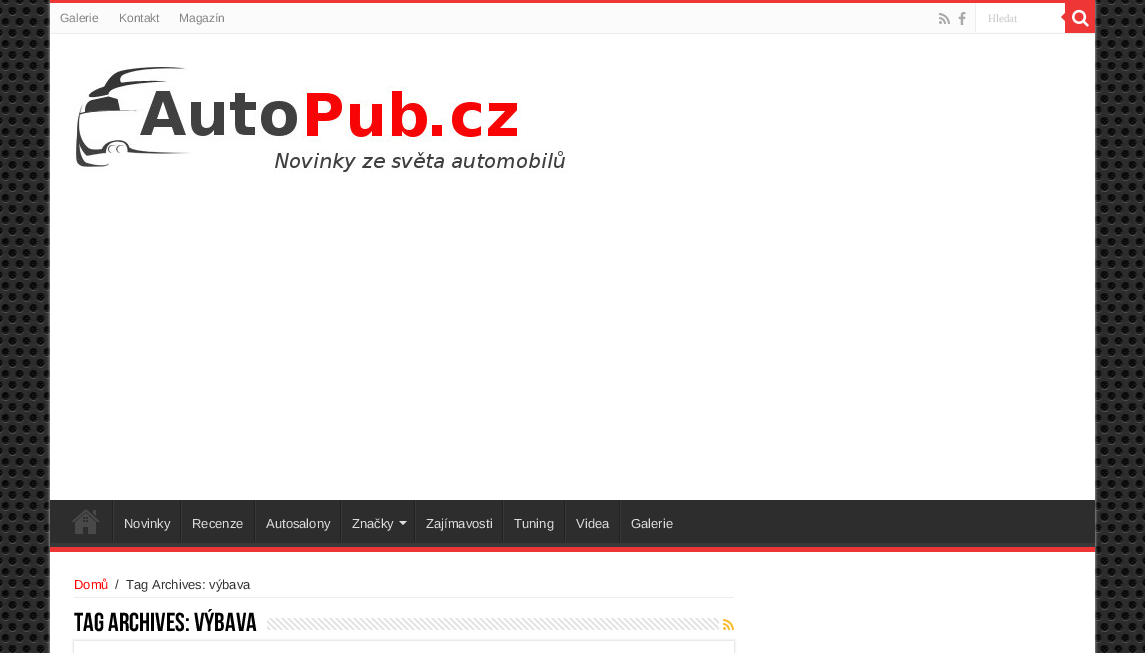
%!PS-Adobe-3.0
%%BoundingBox: 0 0 1145 653
%%LanguageLevel: 3
%%Pages: 1
%%EndComments
%%BeginProlog
/setink { dup -16 bitshift 255 div exch dup -8 bitshift 255 and 255 div exch 255 and 255 div setrgbcolor } def
/usefont { [ exch dup neg 0 0 3 -1 roll 0 0 ] selectfont } def
/setalpha { dup .setfillconstantalpha .setstrokeconstantalpha } def
/rrect { 5 dict begin { /r /h /w /y /x } { exch def } forall
  x r add y moveto x w add y 2 copy h add r arct x w add y h add x 1 index r arct
  x y h add x y r arct x y 2 copy exch w add exch r arct closepath end } def
/softshadow { 12 dict begin { /a /b /q /h /w /y /x } { exch def } forall gsave /was 0 def
  9 -2 -9 { dup b mul 4 div /e exch def 1 sub .425 mul 2.718 exch exp 1 add a .99 .min exch div /now exch def
    1 1 now sub 1 was sub div sub setalpha /was now def
    w h .min e 2 mul add 0 gt { x e sub y e sub w e 2 mul add h e 2 mul add
      q e add b .6 mul add w h .min 2 div e add .min 0 .max rrect fill } if } for grestore end } def
/drawimage { 5 dict begin { /h /w /y /x /name } { exch def } forall
  gsave x y translate w h scale
  w h 8 [w 0 0 h 0 0] name (r) file false 3 colorimage grestore end } def
%%EndProlog
%%BeginSetup
<< /PageSize [1145 653] /PageUsesTransparency true >> setpagedevice
%%EndSetup
%%Page: 1 1
0 .pushpdf14devicefilter
0 653 translate 1 -1 scale
4 setmiterlimit
16#FFFFFF setink
0 0 1145 653 rectfill
(img1.raw) 0 0 1145 653 drawimage
16#CACACA setink
50 0 1045 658 0 1.5 1 softshadow
[
    [50 34 1045 619 16#FFFFFF]
    [50 0 1045 3 16#EF3636]
    [50 3 1015 30 16#FBFBFB]
    [50 33 1045 1 16#ECECEC]
] { aload pop setink rectfill } forall
/LiberationSans-Regular 12 usefont
16#838383 setink
[
    [(Galerie) 60 22]
    [(Kontakt) 119 22]
    [(Magazín) 179 22]
] { aload pop moveto show } forall
(img2.raw) 939 13 11 11 drawimage
(img3.raw) 958 12 8 13 drawimage
16#FFFFFF setink
976 3 89 29 rectfill
16#ECECEC setink
975 3 1 29 rectfill
/LiberationSerif-Regular 11 usefont
16#C5C5C5 setink
988 22 moveto (Hledat) show
16#EF3636 setink
1065 3 30 30 rectfill
(img4.raw) 1072 9 17 18 drawimage
1065 13 moveto 1065 21 lineto 1061 17 lineto closepath fill
(img5.raw) 73 65 496 109 drawimage
16#2D2D2D setink
50 500 1045 43 rectfill
gsave
50 500 1045 47 rectclip
16#393939 setink
-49 401 moveto 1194 401 lineto 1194 646 lineto -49 646 lineto closepath 49 494 moveto 1095 494 lineto 1095 534 lineto 1095 535 1096 543 1094 543 curveto 49 543 lineto 48 542 lineto 48 494 lineto closepath eofill
grestore
16#EF3636 setink
50 547 1045 5 rectfill
(img6.raw) 71 509 29 25 drawimage
16#222222 setink
112 500 1 42 rectfill
16#383838 setink
113 500 1 42 rectfill
/LiberationSans-Regular 13 usefont
16#DDDDDD setink
124 528 moveto (Novinky) show
16#222222 setink
180 500 1 42 rectfill
16#383838 setink
181 500 1 42 rectfill
16#DDDDDD setink
192 528 moveto (Recenze) show
16#222222 setink
254 500 1 42 rectfill
16#383838 setink
255 500 1 42 rectfill
16#DDDDDD setink
266 528 moveto (Autosalony) show
16#222222 setink
340 500 1 42 rectfill
16#383838 setink
341 500 1 42 rectfill
16#DDDDDD setink
352 528 moveto (Značky) show
399 521 moveto 407 521 lineto 403 525 lineto closepath fill
16#222222 setink
414 500 1 42 rectfill
16#383838 setink
415 500 1 42 rectfill
16#DDDDDD setink
426 528 moveto (Zajímavosti) show
16#222222 setink
502 500 1 42 rectfill
16#383838 setink
503 500 1 42 rectfill
16#DDDDDD setink
514 528 moveto (Tuning) show
16#222222 setink
564 500 1 42 rectfill
16#383838 setink
565 500 1 42 rectfill
16#DDDDDD setink
576 528 moveto (Videa) show
16#222222 setink
619 500 1 42 rectfill
16#383838 setink
620 500 1 42 rectfill
16#DDDDDD setink
631 528 moveto (Galerie) show
16#EEEEEE setink
74 597 660 1 rectfill
16#FF0000 setink
74 589 moveto (Domů) show
16#333333 setink
115 589 moveto (/) show
126 589 moveto (Tag Archives: výbava) show
/BebasNeue-Bold 26 usefont
16#000000 setink
74 631 moveto (Tag Archives: výbava) show
(img7.raw) 267 618 452 12 drawimage
(img8.raw) 723 619 11 11 drawimage
gsave
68 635 moveto 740 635 lineto 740 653 lineto 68 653 lineto closepath 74 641 moveto 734 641 lineto 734 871 lineto 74 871 lineto closepath eoclip newpath
16#CACACA setink
74 641 660 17 0 1.5 1 softshadow
grestore
.poppdf14devicefilter showpage
%%EOF
